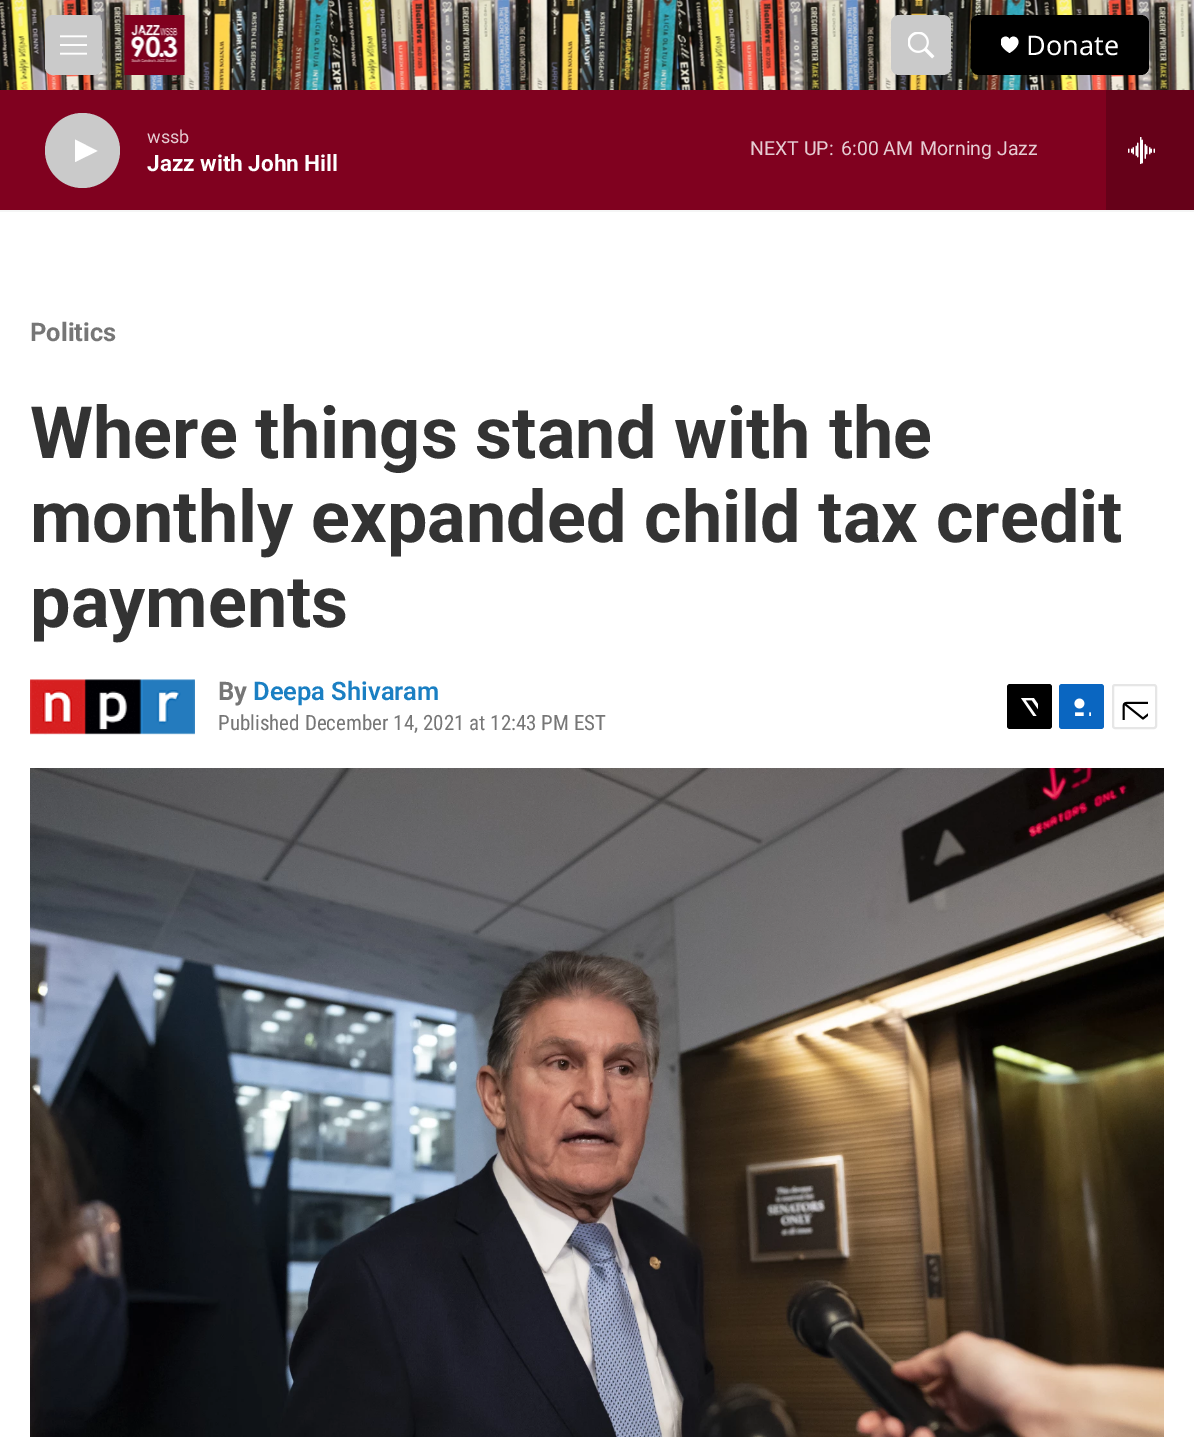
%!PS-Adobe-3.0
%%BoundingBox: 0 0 1194 1437
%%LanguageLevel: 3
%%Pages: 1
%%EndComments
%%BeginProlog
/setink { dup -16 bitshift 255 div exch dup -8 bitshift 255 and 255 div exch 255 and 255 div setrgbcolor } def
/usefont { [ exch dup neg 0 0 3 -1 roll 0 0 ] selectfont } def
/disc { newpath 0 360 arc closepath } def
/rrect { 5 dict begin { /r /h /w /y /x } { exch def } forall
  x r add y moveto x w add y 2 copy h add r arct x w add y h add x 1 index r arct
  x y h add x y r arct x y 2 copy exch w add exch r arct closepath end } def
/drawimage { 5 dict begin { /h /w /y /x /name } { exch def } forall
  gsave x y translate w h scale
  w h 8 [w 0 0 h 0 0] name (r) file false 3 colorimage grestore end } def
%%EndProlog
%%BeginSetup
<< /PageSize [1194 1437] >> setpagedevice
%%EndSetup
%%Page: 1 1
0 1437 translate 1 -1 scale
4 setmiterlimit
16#FFFFFF setink
0 0 1194 1437 rectfill
16#F5F5F5 setink
0 210 1194 2 rectfill
(img1.raw) 0 0 1194 90 drawimage
16#CACACA setink
45 15 57 60 8 rrect fill
(img2.raw) 60 35 27 20 drawimage
(img3.raw) 124 15 61 60 drawimage
891 15 60 60 8 rrect fill
(img4.raw) 908 32 27 27 drawimage
16#000000 setink
971 15 178 60 8 rrect fill
gsave
1001 36 18 18 rectclip
16#FFFFFF setink
1009.5 39.5 moveto 1006.5 31.5 991 41.5 1009.5 53 curveto 1028 41.5 1012.5 31.5 1009.5 39.5 curveto closepath fill
grestore
/NotoSans-Regular 27 usefont
16#FFFFFF setink
1026 55 moveto (Donate) show
16#80011F setink
0 90 1106 120 rectfill
16#CACACA setink
82.5 150.5 37.5 disc fill
16#FFFFFF setink
75 139.5 moveto 97.5 151 lineto 75 162 lineto closepath fill
/Roboto-Regular 18 usefont
16#E6CCD2 setink
147 143 moveto (wssb) show
/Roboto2-Bold 22.5 usefont
16#FFFFFF setink
147 171 moveto (Jazz with John Hill) show
/Roboto-Regular 19.5 usefont
16#E6CCD2 setink
[
    [(NEXT UP:) 750 155]
    [(6:00 AM) 841 155]
    [(Morning Jazz) 920 155]
] { aload pop moveto show } forall
16#660119 setink
1106 90 88 120 rectfill
(img5.raw) 1128 137 27 27 drawimage
/Roboto-Bold 25.5 usefont
16#767676 setink
30 341 moveto (Politics) show
/Roboto-Bold 72 usefont
16#333333 setink
[
    [(Where things stand with the) 30 458]
    [(monthly expanded child tax credit) 30 542]
    [(payments) 30 627]
] { aload pop moveto show } forall
(img6.raw) 30 679 165 56 drawimage
/Roboto-Bold 25.5 usefont
16#767676 setink
218 700 moveto (By) show
/Roboto-SemiBold 25.5 usefont
16#1A7FC3 setink
253 700 moveto (Deepa Shivaram) show
/RobotoCondensed-Regular 21 usefont
16#767676 setink
218 730 moveto (Published December 14, 2021 at 12:43 PM EST) show
16#000000 setink
1007 684 45 45 3 rrect fill
(img7.raw) 1021 698 17 18 drawimage
16#0A66C1 setink
1059 684 45 45 3 rrect fill
(img8.raw) 1074 698 17 18 drawimage
16#E6E6E6 setink
2 setlinewidth
1113 685 43 43 2 rrect stroke
(img9.raw) 1122 701 26 19 drawimage
(img10.raw) 30 768 1134 669 drawimage
showpage
%%EOF
